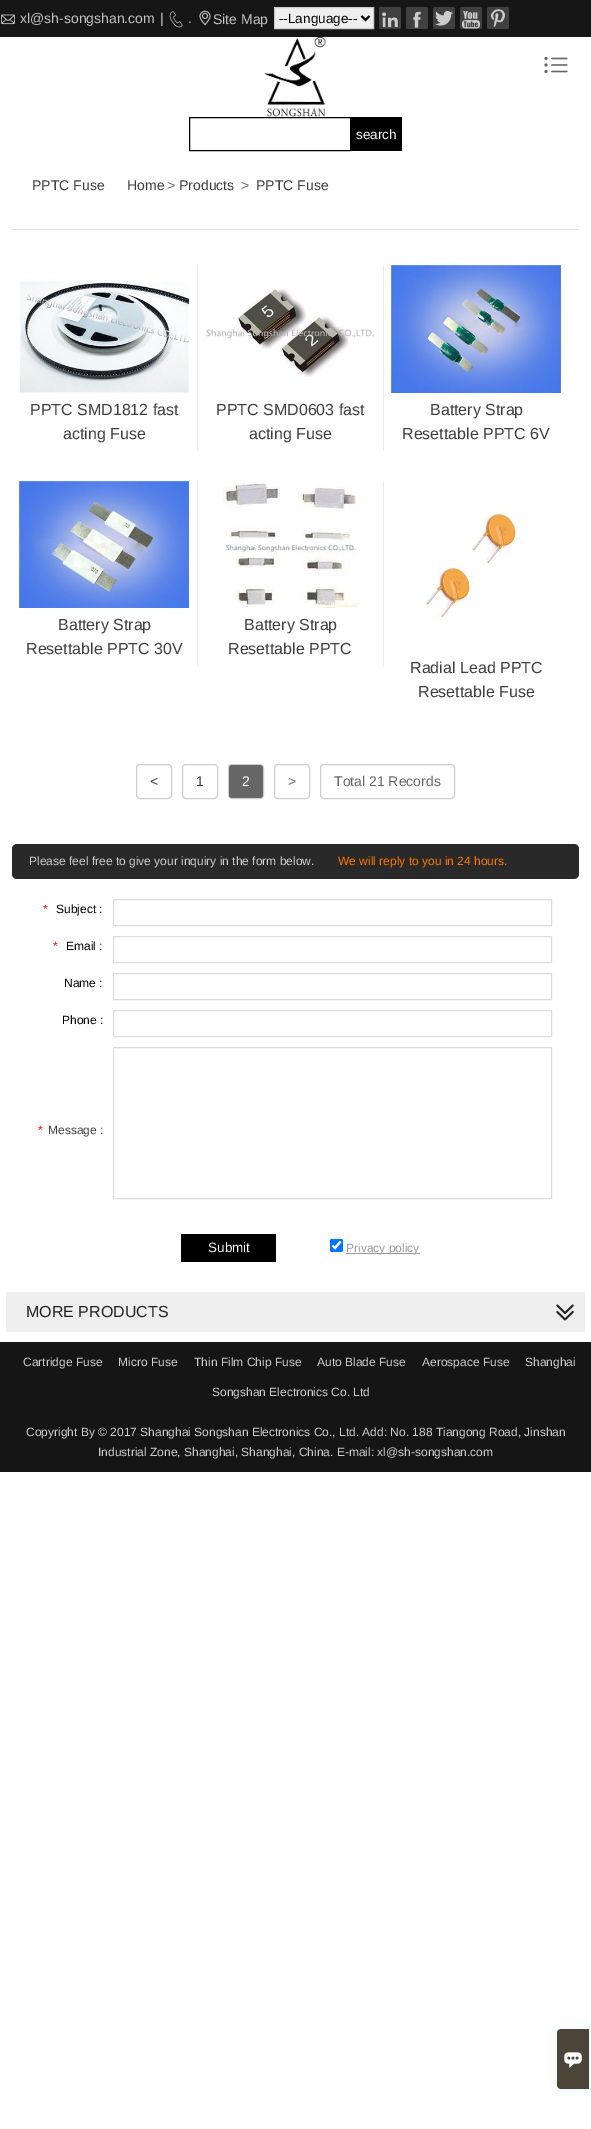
%!PS-Adobe-3.0
%%BoundingBox: 0 0 591 2129
%%LanguageLevel: 3
%%Pages: 1
%%EndComments
%%BeginProlog
/setink { dup -16 bitshift 255 div exch dup -8 bitshift 255 and 255 div exch 255 and 255 div setrgbcolor } def
/usefont { [ exch dup neg 0 0 3 -1 roll 0 0 ] selectfont } def
/setalpha { dup .setfillconstantalpha .setstrokeconstantalpha } def
/rrect { 5 dict begin { /r /h /w /y /x } { exch def } forall
  x r add y moveto x w add y 2 copy h add r arct x w add y h add x 1 index r arct
  x y h add x y r arct x y 2 copy exch w add exch r arct closepath end } def
/softshadow { 12 dict begin { /a /b /q /h /w /y /x } { exch def } forall gsave /was 0 def
  9 -2 -9 { dup b mul 4 div /e exch def 1 sub .425 mul 2.718 exch exp 1 add a .99 .min exch div /now exch def
    1 1 now sub 1 was sub div sub setalpha /was now def
    w h .min e 2 mul add 0 gt { x e sub y e sub w e 2 mul add h e 2 mul add
      q e add b .6 mul add w h .min 2 div e add .min 0 .max rrect fill } if } for grestore end } def
/drawimage { 5 dict begin { /h /w /y /x /name } { exch def } forall
  gsave x y translate w h scale
  w h 8 [w 0 0 h 0 0] name (r) file false 3 colorimage grestore end } def
%%EndProlog
%%BeginSetup
<< /PageSize [591 2129] /PageUsesTransparency true >> setpagedevice
%%EndSetup
%%Page: 1 1
0 .pushpdf14devicefilter
0 2129 translate 1 -1 scale
4 setmiterlimit
16#FFFFFF setink
0 0 591 2129 rectfill
16#161616 setink
0 0 591 37 rectfill
(img1.raw) 1 14 14 11 drawimage
/LiberationSans-Regular 14 usefont
16#C1C1C1 setink
20 23 moveto (xl@sh-songshan.com) show
160 23 moveto (|) show
(img2.raw) 169 11 14 17 drawimage
188 23 moveto (.) show
(img3.raw) 199 10 12 16 drawimage
213 24 moveto (Site Map) show
16#EFEFEF setink
274.5 7.5 moveto 373.5 7.5 lineto 373.5 28.5 lineto 274.5 28.5 lineto closepath gsave fill grestore
16#CCCCCC setink
stroke
16#000000 setink
2 setlinewidth
361.5 16 moveto 365.5 20 lineto 369.5 16 lineto stroke
/LiberationSans-Regular 13.5 usefont
279 23 moveto (--Language--) show
16#404040 setink
379 7 22 22 2 rrect fill
(img4.raw) 382 12 16 16 drawimage
406 7 22 22 2 rrect fill
(img5.raw) 413 11 8 17 drawimage
433 7 22 22 2 rrect fill
(img6.raw) 435 11 18 15 drawimage
460 7 22 22 2 rrect fill
(img7.raw) 462 11 18 18 drawimage
487 7 22 22 2 rrect fill
(img8.raw) 490 9 15 19 drawimage
(img9.raw) 264 37 62 80 drawimage
(img10.raw) 544 56 24 18 drawimage
16#000000 setink
1 setlinewidth
189.5 117.5 161 33 rectstroke
351 117 51 34 rectfill
16#FFFFFF setink
356 139 moveto (search) show
/LiberationSans-Regular 14 usefont
16#3E3E3E setink
32 190 moveto (PPTC Fuse) show
127 190 moveto (Home) show
16#666666 setink
167 190 moveto (>) show
16#3E3E3E setink
179 190 moveto (Products) show
16#666666 setink
241 190 moveto (>) show
16#3E3E3E setink
256 190 moveto (PPTC Fuse) show
16#DFDFDF setink
12 229 567 1 rectfill
16#EBEBEB setink
197 265 1 186 rectfill
(img11.raw) 19 279 170 114 drawimage
/LiberationSans-Regular 16 usefont
16#3E3E3E setink
30 415 moveto (PPTC SMD1812 fast) show
63 439 moveto (acting Fuse) show
16#EBEBEB setink
383 265 1 186 rectfill
(img12.raw) 205 287 169 90 drawimage
16#3E3E3E setink
216 415 moveto (PPTC SMD0603 fast) show
249 439 moveto (acting Fuse) show
(img13.raw) 391 265 170 128 drawimage
430 415 moveto (Battery Strap) show
402 439 moveto (Resettable PPTC 6V) show
16#EBEBEB setink
197 481 1 185 rectfill
(img14.raw) 19 481 170 127 drawimage
16#3E3E3E setink
58 630 moveto (Battery Strap) show
26 654 moveto (Resettable PPTC 30V) show
16#EBEBEB setink
383 481 1 185 rectfill
(img15.raw) 222 481 137 127 drawimage
16#3E3E3E setink
244 630 moveto (Battery Strap) show
228 654 moveto (Resettable PPTC) show
(img16.raw) 426 508 92 110 drawimage
410 673 moveto (Radial Lead PPTC) show
418 697 moveto (Resettable Fuse) show
16#CECECE setink
136.5 764.5 35 34 3.5 rrect stroke
/LiberationSans-Regular 14 usefont
16#3E3E3E setink
150 786 moveto (<) show
16#CECECE setink
182.5 764.5 35 34 3.5 rrect stroke
16#3E3E3E setink
196 786 moveto (1) show
16#CECECE setink
228.5 764.5 35 34 3.5 rrect stroke
16#666666 setink
229 765 34 33 3 rrect fill
16#FFFFFF setink
242 786 moveto (2) show
16#CECECE setink
274.5 764.5 35 34 3.5 rrect stroke
16#666666 setink
288 786 moveto (>) show
16#CECECE setink
320.5 764.5 134 34 3.5 rrect stroke
16#666666 setink
334 786 moveto (Total 21 Records) show
16#292929 setink
12 844 567 35 5 rrect fill
/LiberationSans-Regular 12 usefont
16#CCCCCC setink
29 865 moveto (Please feel free to give your inquiry in the form below.) show
16#FA7706 setink
338 865 moveto (We will reply to you in 24 hours.) show
16#FF0000 setink
43 913 moveto (*) show
16#000000 setink
56 913 moveto (Subject :) show
16#DCDCDC setink
113.5 899.5 438 26 rectstroke
16#FF0000 setink
53 950 moveto (*) show
16#000000 setink
66 950 moveto (Email :) show
16#DCDCDC setink
113.5 936.5 438 26 rectstroke
16#000000 setink
64 987 moveto (Name :) show
16#DCDCDC setink
113.5 973.5 438 26 rectstroke
16#000000 setink
62 1024 moveto (Phone :) show
16#DCDCDC setink
113.5 1010.5 438 26 rectstroke
16#FF0000 setink
38 1134 moveto (*) show
16#3E3E3E setink
48 1134 moveto (Message :) show
16#DCDCDC setink
113.5 1047.5 438 151 rectstroke
16#000000 setink
181 1234 95 28 rectfill
/LiberationSans-Regular 13.5 usefont
16#FFFFFF setink
208 1252 moveto (Submit) show
16#0075FF setink
330 1239 13 13 2 rrect fill
16#FFFFFF setink
2.1 setlinewidth
332.5 1245.5 moveto 335 1248 lineto 340.5 1241.5 lineto stroke
16#999999 setink
346 1253 74 1 rectfill
/LiberationSans-Regular 12 usefont
346 1252 moveto (Privacy policy) show
16#EEEEEE setink
6 1292 579 40 rectfill
/LiberationSans-Regular 16 usefont
16#222222 setink
26 1317 moveto (MORE PRODUCTS) show
(img17.raw) 556 1304 18 17 drawimage
16#151515 setink
0 1342 591 130 rectfill
/LiberationSans-Regular 12 usefont
16#CCCCCC setink
[
    [(Cartridge Fuse) 23 1366]
    [(Micro Fuse) 118 1366]
    [(Thin Film Chip Fuse) 194 1366]
    [(Auto Blade Fuse) 317 1366]
    [(Aerospace Fuse) 422 1366]
    [(Shanghai) 525 1366]
    [(Songshan Electronics Co. Ltd) 212 1396]
    [(Copyright By © 2017 Shanghai Songshan Electronics Co., Ltd. Add: No. 188 Tiangong Road, Jinshan) 26 1436]
    [(Industrial Zone, Shanghai, Shanghai, China. E-mail: xl@sh-songshan.com) 98 1456]
] { aload pop moveto show } forall
16#EAF0F6 setink
557 2029 32 60 4 4 1 softshadow
16#4A4439 setink
561 2029 moveto 589 2029 lineto 589 2089 lineto 561 2089 lineto 559 2089 557 2087 557 2085 curveto 557 2033 lineto 557 2031 559 2029 561 2029 curveto closepath fill
(img18.raw) 564 2052 18 16 drawimage
.poppdf14devicefilter showpage
%%EOF
